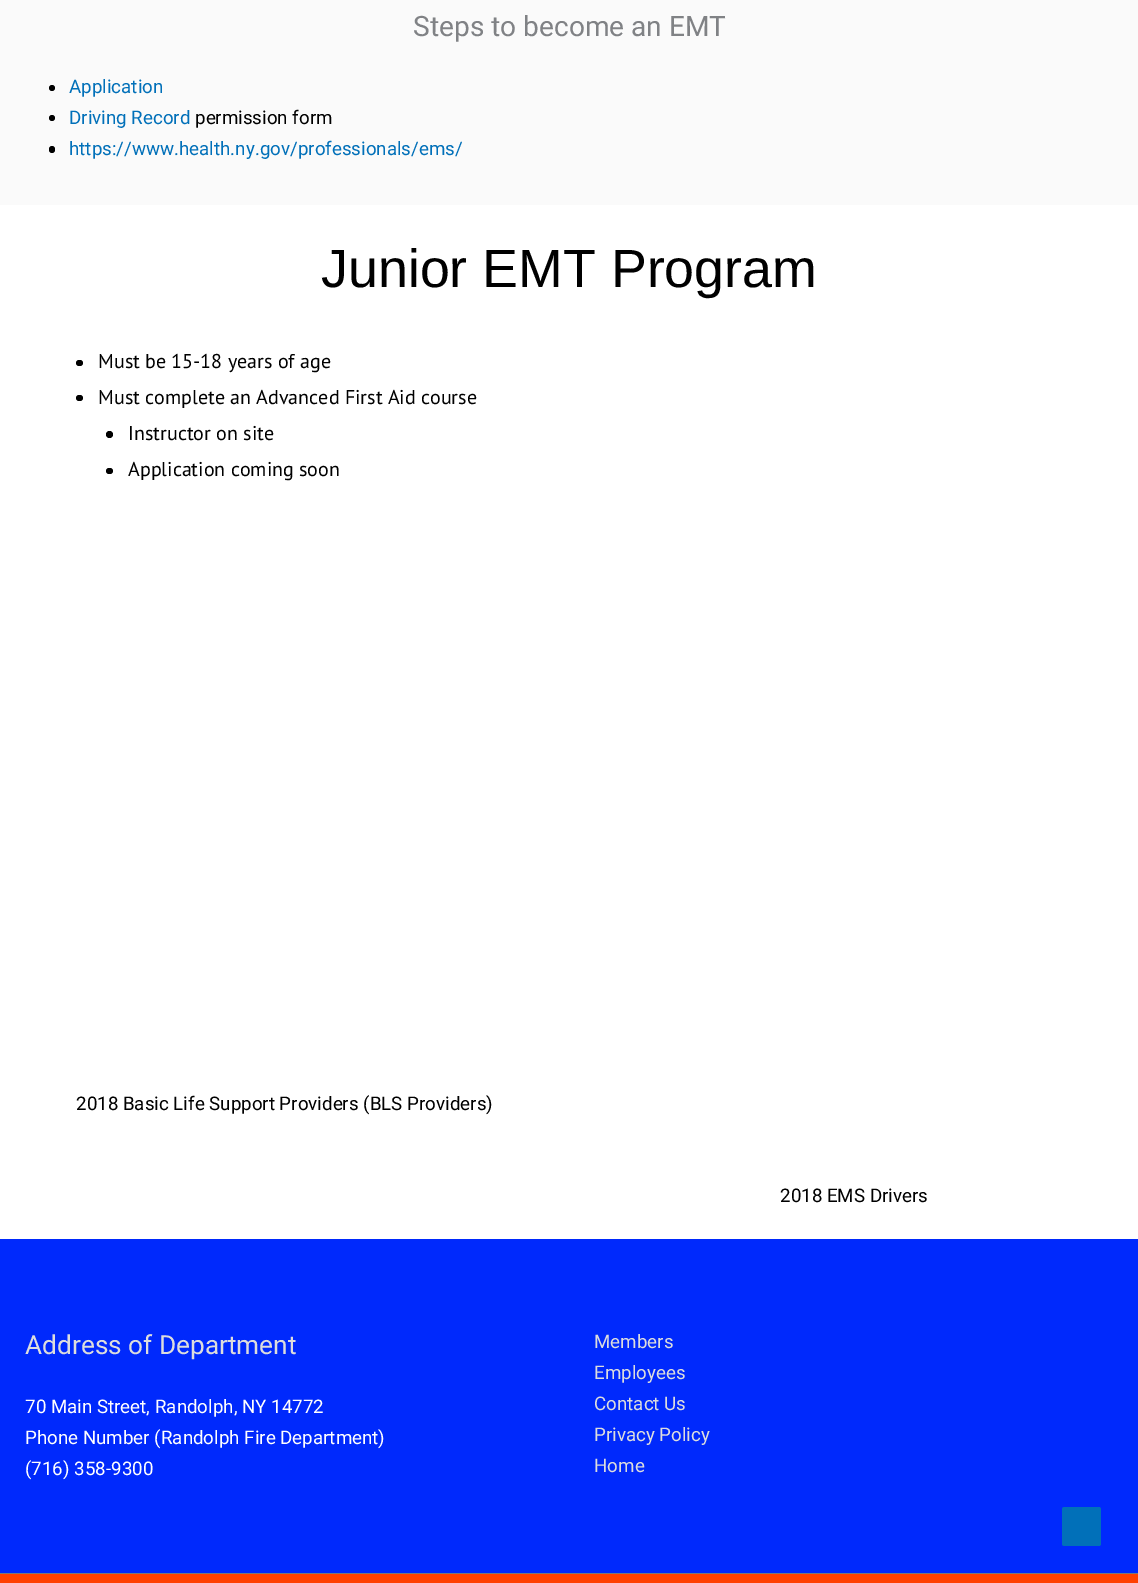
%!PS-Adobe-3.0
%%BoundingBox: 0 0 1138 1583
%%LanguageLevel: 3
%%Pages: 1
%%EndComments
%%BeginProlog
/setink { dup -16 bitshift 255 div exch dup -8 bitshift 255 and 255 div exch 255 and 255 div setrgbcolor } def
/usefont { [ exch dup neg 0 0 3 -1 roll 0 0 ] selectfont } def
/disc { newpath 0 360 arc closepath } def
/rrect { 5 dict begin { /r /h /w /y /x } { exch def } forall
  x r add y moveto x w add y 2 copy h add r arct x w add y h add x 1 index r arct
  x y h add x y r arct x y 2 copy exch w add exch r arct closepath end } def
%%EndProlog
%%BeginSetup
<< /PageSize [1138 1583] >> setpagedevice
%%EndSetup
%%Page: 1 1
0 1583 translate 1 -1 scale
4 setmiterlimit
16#FFFFFF setink
0 0 1138 1583 rectfill
16#FAFAFA setink
0 0 1138 205 rectfill
/Roboto-Regular 28.1 usefont
16#808285 setink
413 36 moveto (Steps to become an EMT) show
16#000000 setink
52 88 3 disc fill
/Roboto-Regular 18.75 usefont
16#0170B9 setink
69 93 moveto (Application) show
16#000000 setink
52 118 3 disc fill
16#0170B9 setink
69 124 moveto (Driving Record) show
16#000000 setink
195 124 moveto (permission form) show
49 146 6 7 3 rrect fill
16#0170B9 setink
69 155 moveto (https://www.health.ny.gov/professionals/ems/) show
/LiberationSans-Regular 53.75 usefont
16#000000 setink
321 287 moveto (Junior EMT Program) show
76 360 7 6 3 rrect fill
/PTSans-Regular 20 usefont
98 368 moveto (Must be 15-18 years of age) show
76 395 7 6 3 rrect fill
98 404 moveto (Must complete an Advanced First Aid course) show
109.5 434.5 3.5 disc fill
128 440 moveto (Instructor on site) show
106 468 7 6 3 rrect fill
128 476 moveto (Application coming soon) show
/Roboto-Regular 18.75 usefont
76 1110 moveto (2018 Basic Life Support Providers \(BLS Providers\)) show
780 1202 moveto (2018 EMS Drivers) show
16#0029FC setink
0 1239 1138 334 rectfill
/Roboto-Regular 26.25 usefont
16#DDDDDD setink
25 1354 moveto (Address of Department) show
/Roboto-Regular 18.75 usefont
16#FFFFFF setink
[
    [(70 Main Street, Randolph, NY 14772) 25 1413]
    [(Phone Number \(Randolph Fire Department\)) 25 1444]
    [(\(716\) 358-9300) 25 1475]
] { aload pop moveto show } forall
16#DDDDDD setink
[
    [(Members) 594 1348]
    [(Employees) 594 1379]
    [(Contact Us) 594 1410]
    [(Privacy Policy) 594 1441]
    [(Home) 594 1472]
] { aload pop moveto show } forall
16#7A7A7A setink
0 1573 1138 1 rectfill
16#FF4001 setink
0 1574 1138 9 rectfill
16#0170B9 setink
1099 1546 moveto 1064.5 1546 lineto 1063 1546 1062 1545 1062 1544 curveto 1062 1509.5 lineto 1062 1508 1063 1507 1064.5 1507 curveto 1099 1507 lineto 1100 1507 1101 1508 1101 1509.5 curveto 1101 1544 lineto 1101 1545 1100 1546 1099 1546 curveto closepath fill
showpage
%%EOF
